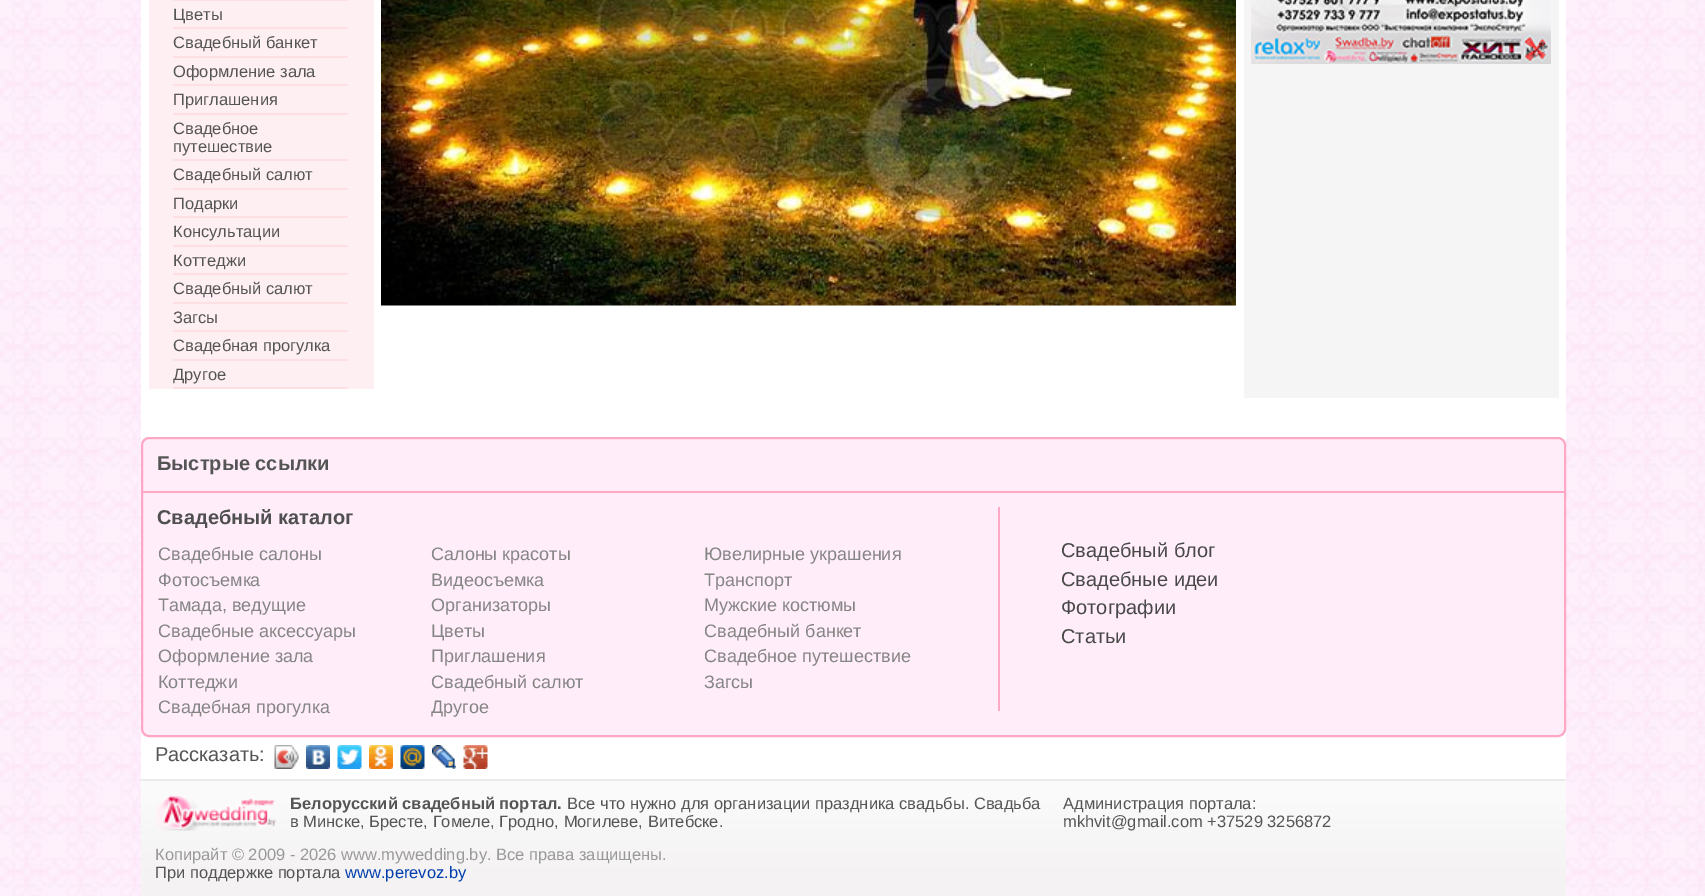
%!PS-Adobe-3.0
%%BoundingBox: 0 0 1705 896
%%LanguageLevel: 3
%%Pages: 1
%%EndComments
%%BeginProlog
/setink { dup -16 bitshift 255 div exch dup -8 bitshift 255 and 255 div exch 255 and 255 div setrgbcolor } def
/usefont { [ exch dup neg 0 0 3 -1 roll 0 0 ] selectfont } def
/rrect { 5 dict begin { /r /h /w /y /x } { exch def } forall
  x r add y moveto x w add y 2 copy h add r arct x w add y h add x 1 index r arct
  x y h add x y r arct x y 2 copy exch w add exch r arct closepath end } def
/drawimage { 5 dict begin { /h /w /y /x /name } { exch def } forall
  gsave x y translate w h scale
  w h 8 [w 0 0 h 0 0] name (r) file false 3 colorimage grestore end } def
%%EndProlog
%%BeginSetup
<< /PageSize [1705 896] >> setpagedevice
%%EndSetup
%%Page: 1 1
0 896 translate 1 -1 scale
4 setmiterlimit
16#FFFFFF setink
0 0 1705 896 rectfill
(img1.raw) 0 0 1705 896 drawimage
[
    [141 0 1425 779 16#FFFFFF]
    [149 0 225 389 16#FEEFF2]
    [173 0 175 1 16#FEDFE4]
    [173 27 175 2 16#FEDFE4]
] { aload pop setink rectfill } forall
/LiberationSans-Regular 16.5 usefont
16#555555 setink
173 20 moveto (Цветы) show
16#FEDFE4 setink
173 56 175 2 rectfill
16#555555 setink
173 48 moveto (Свадебный банкет) show
16#FEDFE4 setink
173 84 175 2 rectfill
16#555555 setink
173 77 moveto (Оформление зала) show
16#FEDFE4 setink
173 113 175 2 rectfill
16#555555 setink
173 105 moveto (Приглашения) show
16#FEDFE4 setink
173 159 175 2 rectfill
16#555555 setink
173 134 moveto (Свадебное) show
173 152 moveto (путешествие) show
16#FEDFE4 setink
173 188 175 2 rectfill
16#555555 setink
173 180 moveto (Свадебный салют) show
16#FEDFE4 setink
173 216 175 2 rectfill
16#555555 setink
173 209 moveto (Подарки) show
16#FEDFE4 setink
173 245 175 2 rectfill
16#555555 setink
173 237 moveto (Консультации) show
16#FEDFE4 setink
173 273 175 2 rectfill
16#555555 setink
173 266 moveto (Коттеджи) show
16#FEDFE4 setink
173 302 175 2 rectfill
16#555555 setink
173 294 moveto (Свадебный салют) show
16#FEDFE4 setink
173 330 175 2 rectfill
16#555555 setink
173 323 moveto (Загсы) show
16#FEDFE4 setink
173 359 175 2 rectfill
16#555555 setink
173 351 moveto (Свадебная прогулка) show
16#FEDFE4 setink
173 387 175 2 rectfill
16#555555 setink
173 380 moveto (Другое) show
(img2.raw) 381 0 855 306 drawimage
16#F6F5F5 setink
1244 0 315 398 rectfill
(img3.raw) 1251 0 300 64 drawimage
16#FFEEFA setink
142 438 1423 298 7 rrect gsave fill grestore
16#FFA8C5 setink
2 setlinewidth
stroke
143 491 1422 2 rectfill
/LiberationSans-Bold 20 usefont
16#555555 setink
157 470 moveto (Быстрые ссылки) show
16#4F4F4F setink
157 524 moveto (Свадебный каталог) show
/LiberationSans-Regular 18 usefont
16#868585 setink
[
    [(Свадебные салоны) 158 560]
    [(Салоны красоты) 431 560]
    [(Ювелирные украшения) 704 560]
    [(Фотосъемка) 158 586]
    [(Видеосъемка) 431 586]
    [(Транспорт) 704 586]
    [(Тамада, ведущие) 158 611]
    [(Организаторы) 431 611]
    [(Мужские костюмы) 704 611]
    [(Свадебные аксессуары) 158 637]
    [(Цветы) 431 637]
    [(Свадебный банкет) 704 637]
    [(Оформление зала) 158 662]
    [(Приглашения) 431 662]
    [(Свадебное путешествие) 704 662]
    [(Коттеджи) 158 688]
    [(Свадебный салют) 431 688]
    [(Загсы) 704 688]
    [(Свадебная прогулка) 158 713]
    [(Другое) 431 713]
] { aload pop moveto show } forall
16#FFA8C5 setink
998 507 2 204 rectfill
/LiberationSans-Regular 20 usefont
16#494849 setink
[
    [(Свадебный блог) 1061 557]
    [(Свадебные идеи) 1061 586]
    [(Фотографии) 1061 614]
    [(Статьи) 1061 643]
] { aload pop moveto show } forall
16#555555 setink
155 761 moveto (Рассказать:) show
(img4.raw) 274 745 25 24 drawimage
(img5.raw) 274 745 25 24 drawimage
(img6.raw) 306 745 24 24 drawimage
(img7.raw) 337 745 25 24 drawimage
(img8.raw) 369 745 24 24 drawimage
(img9.raw) 400 745 25 24 drawimage
(img10.raw) 432 745 24 24 drawimage
(img11.raw) 463 745 25 24 drawimage
gsave 141 781 moveto 1566 781 lineto 1566 896 lineto 141 896 lineto closepath clip newpath
<< /ShadingType 2 /ColorSpace /DeviceRGB /Coords [141 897 141 780] /Extend [true true] /Function << /FunctionType 3 /Domain [0 1] /Functions [<< /FunctionType 2 /Domain [0 1] /C0 [0.957 0.949 0.949] /C1 [0.957 0.949 0.949] /N 1 >> << /FunctionType 2 /Domain [0 1] /C0 [0.957 0.949 0.949] /C1 [0.98 0.98 0.98] /N 1 >> << /FunctionType 2 /Domain [0 1] /C0 [0.98 0.98 0.98] /C1 [0.98 0.98 0.98] /N 1 >>] /Bounds [0.19 0.82] /Encode [0 1 0 1 0 1] >> >> shfill grestore
16#ECEBEB setink
141 779 1425 2 rectfill
(img12.raw) 156 795 120 36 drawimage
/LiberationSans-Bold 16.5 usefont
16#555555 setink
290 809 moveto (Белорусский свадебный портал.) show
/LiberationSans-Regular 16.5 usefont
[
    [(Все что нужно для организации праздника свадьбы. Свадьба) 567 809]
    [(в Минске, Бресте, Гомеле, Гродно, Могилеве, Витебске.) 290 827]
    [(Администрация портала:) 1063 809]
    [(mkhvit@gmail.com +37529 3256872) 1063 827]
] { aload pop moveto show } forall
16#999999 setink
155 860 moveto (Копирайт © 2009 - 2026 www.mywedding.by. Все права защищены.) show
16#555555 setink
155 878 moveto (При поддержке портала) show
16#003DAD setink
345 878 moveto (www.perevoz.by) show
showpage
%%EOF
